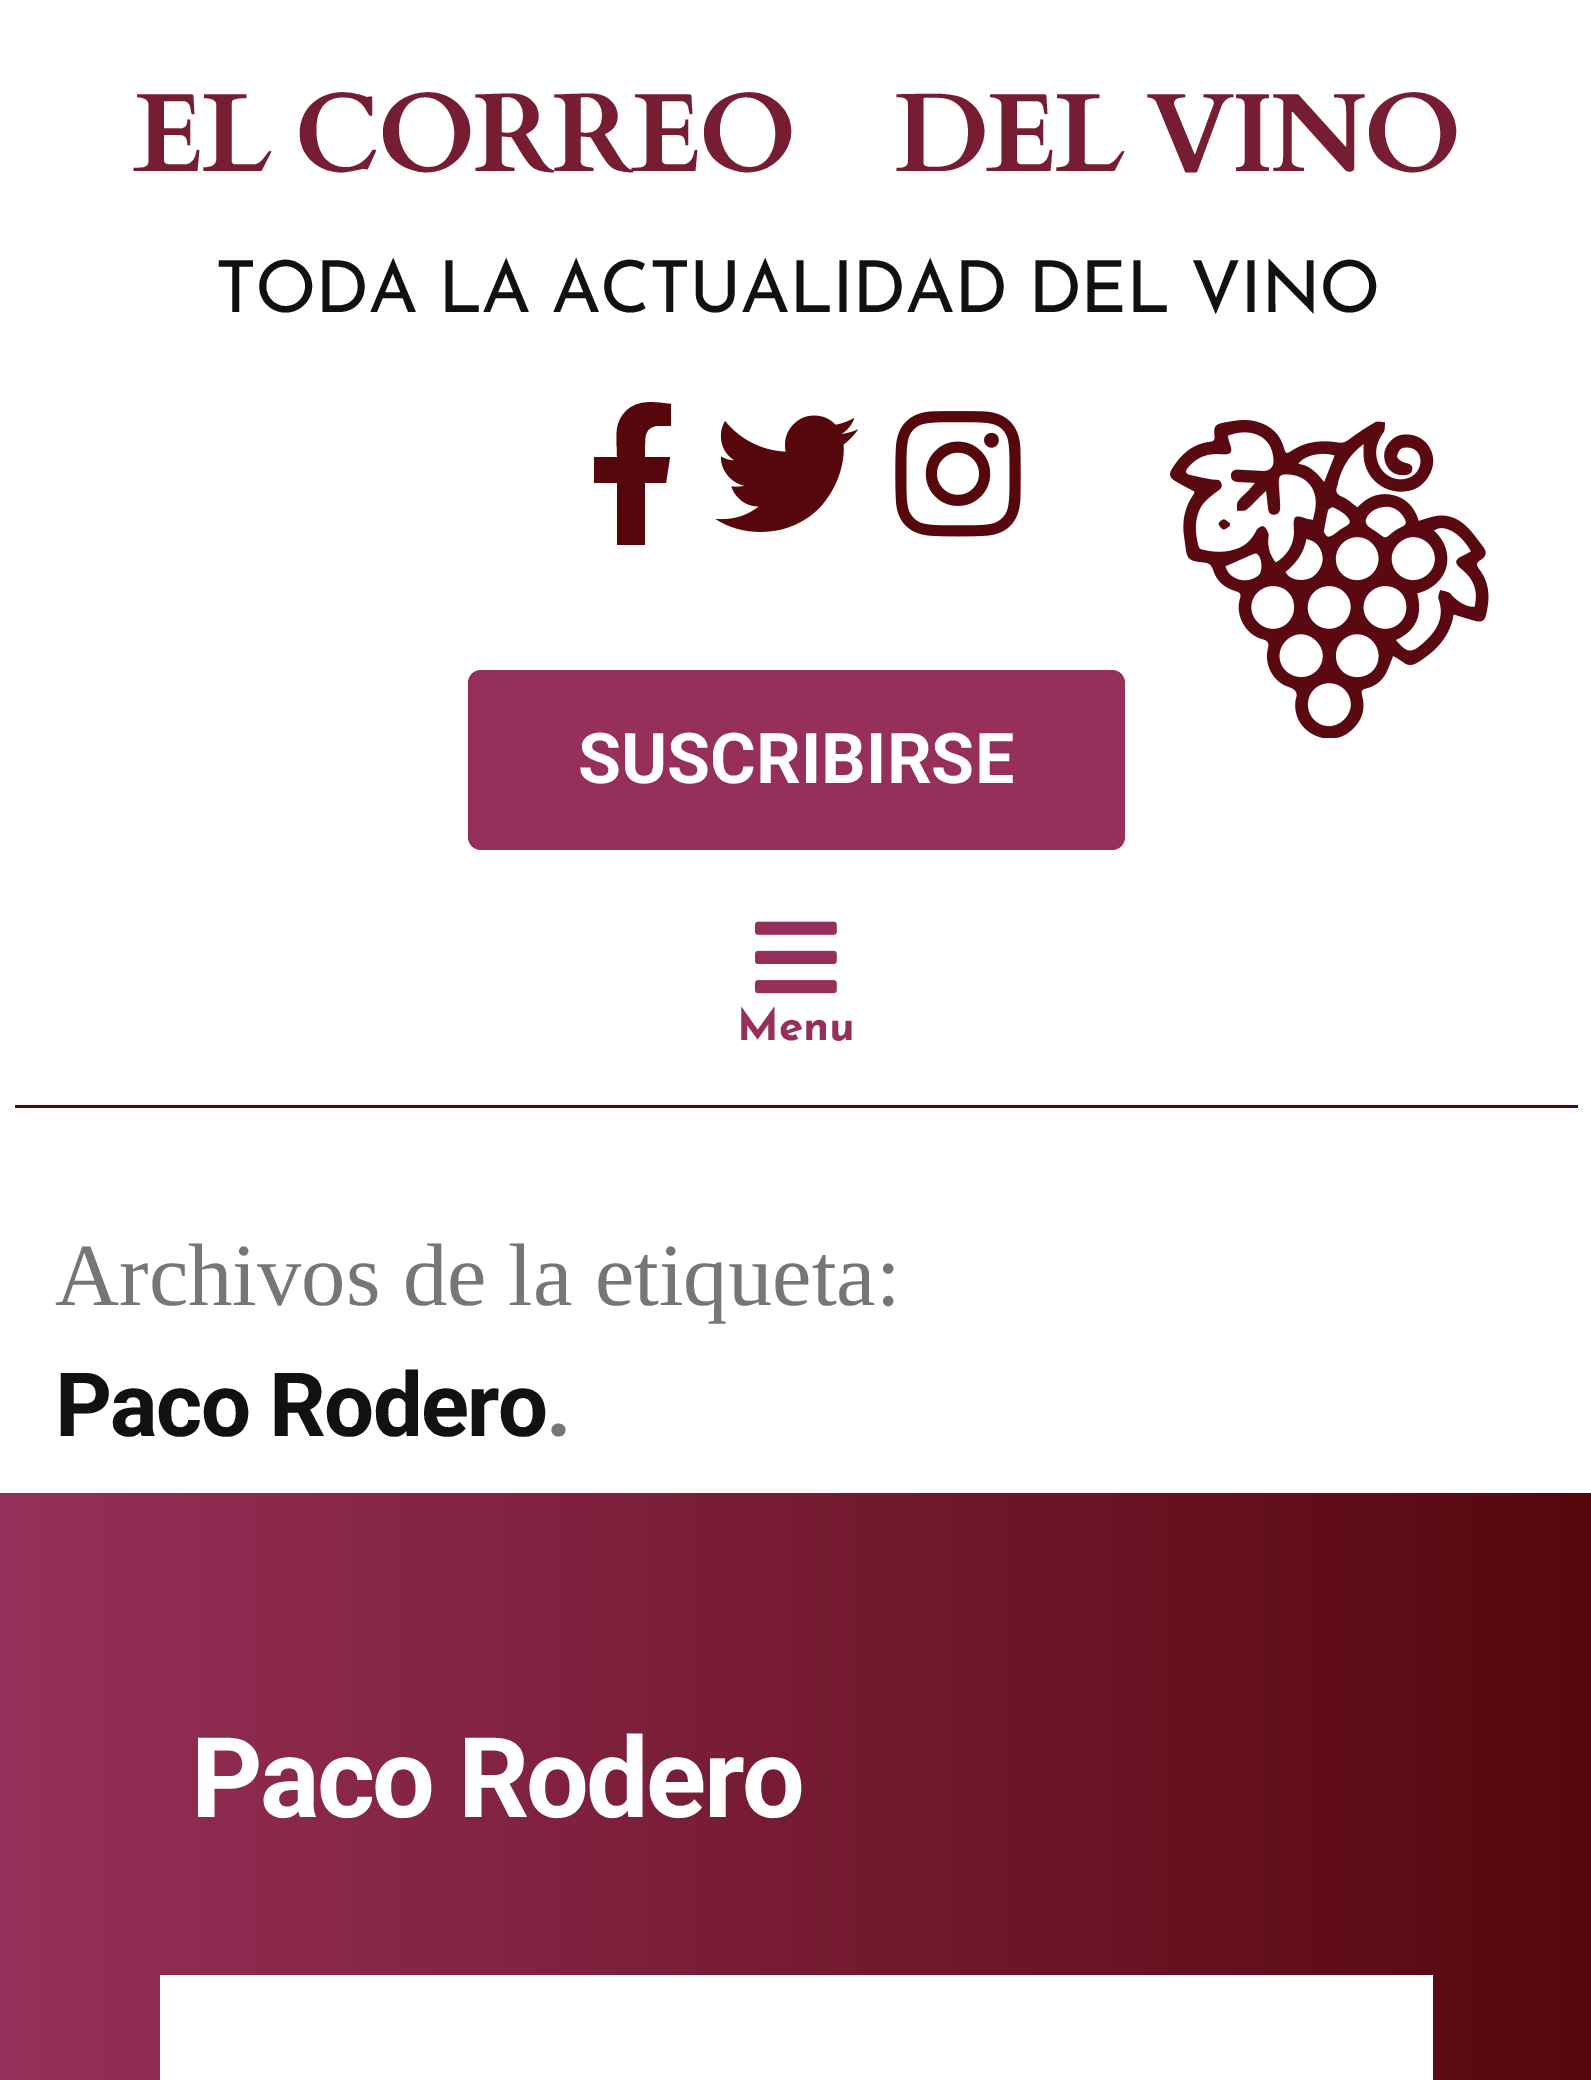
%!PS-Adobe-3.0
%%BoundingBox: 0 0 1591 2080
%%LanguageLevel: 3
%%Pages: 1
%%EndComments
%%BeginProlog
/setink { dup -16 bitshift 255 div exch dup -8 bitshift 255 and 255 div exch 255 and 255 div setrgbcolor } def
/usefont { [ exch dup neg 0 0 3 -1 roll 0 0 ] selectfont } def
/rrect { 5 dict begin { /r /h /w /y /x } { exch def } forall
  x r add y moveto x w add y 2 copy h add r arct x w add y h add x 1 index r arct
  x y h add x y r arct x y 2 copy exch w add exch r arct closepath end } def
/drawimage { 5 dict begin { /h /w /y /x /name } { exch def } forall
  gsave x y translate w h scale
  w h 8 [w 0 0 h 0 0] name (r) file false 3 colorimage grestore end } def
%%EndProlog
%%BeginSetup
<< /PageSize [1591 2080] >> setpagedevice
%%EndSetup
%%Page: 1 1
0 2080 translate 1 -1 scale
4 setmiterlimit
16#FFFFFF setink
0 0 1591 2080 rectfill
16#56070C setink
15 1105 1563 3 rectfill
/Cardo-Bold 111.5 usefont
16#761C33 setink
133 171 moveto -3.5 0 (EL CORREO) ashow
894 171 moveto -3.5 0 (DEL VINO) ashow
/JosefinSans-Regular 71.7 usefont
16#111111 setink
215 312 moveto -1.4 0 (TODA LA ACTUALIDAD DEL VINO) ashow
16#56070C setink
666 483 moveto 645 483 lineto 645 545 lineto 617 545 lineto 617 483 lineto 594 483 lineto 594 457 lineto 617 457 lineto 617 448 616 438 617 429 curveto 618 422 621 416 626 411 curveto 638 399 655 402 671 404 curveto 671 426 lineto 656 426 lineto 645 428 645 437 645 445 curveto 645 457 lineto 670 457 lineto closepath fill
(img1.raw) 715 415 144 117 drawimage
(img2.raw) 895 411 126 126 drawimage
(img3.raw) 1170 420 319 318 drawimage
16#96305A setink
468 670 657 180 13 rrect fill
/Roboto-Bold 70 usefont
16#FFFFFF setink
578 783 moveto (SUSCRIBIRSE) show
(img4.raw) 755 921 82 73 drawimage
/JosefinSans-Bold 44 usefont
16#96305A setink
737 1040 moveto (Menu) show
/LiberationSerif-Regular 88.75 usefont
16#767676 setink
55 1305 moveto (Archivos de la etiqueta:) show
/Roboto-Bold 88.75 usefont
16#111111 setink
55 1436 moveto -1.75 0 (Paco Rodero) ashow
16#767676 setink
546 1436 moveto -1.75 0 (.) ashow
gsave 0 1493 moveto 1591 1493 lineto 1591 2080 lineto 0 2080 lineto closepath clip newpath
<< /ShadingType 2 /ColorSpace /DeviceRGB /Coords [0 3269 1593 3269] /Extend [true true] /Function << /FunctionType 2 /Domain [0 1] /C0 [0.588 0.188 0.353] /C1 [0.337 0.027 0.047] /N 1 >> >> shfill grestore
/Roboto-Bold 111.5 usefont
16#FFFFFF setink
191 1817 moveto -2.75 0 (Paco Rodero) ashow
160 1975 1273 105 rectfill
showpage
%%EOF
